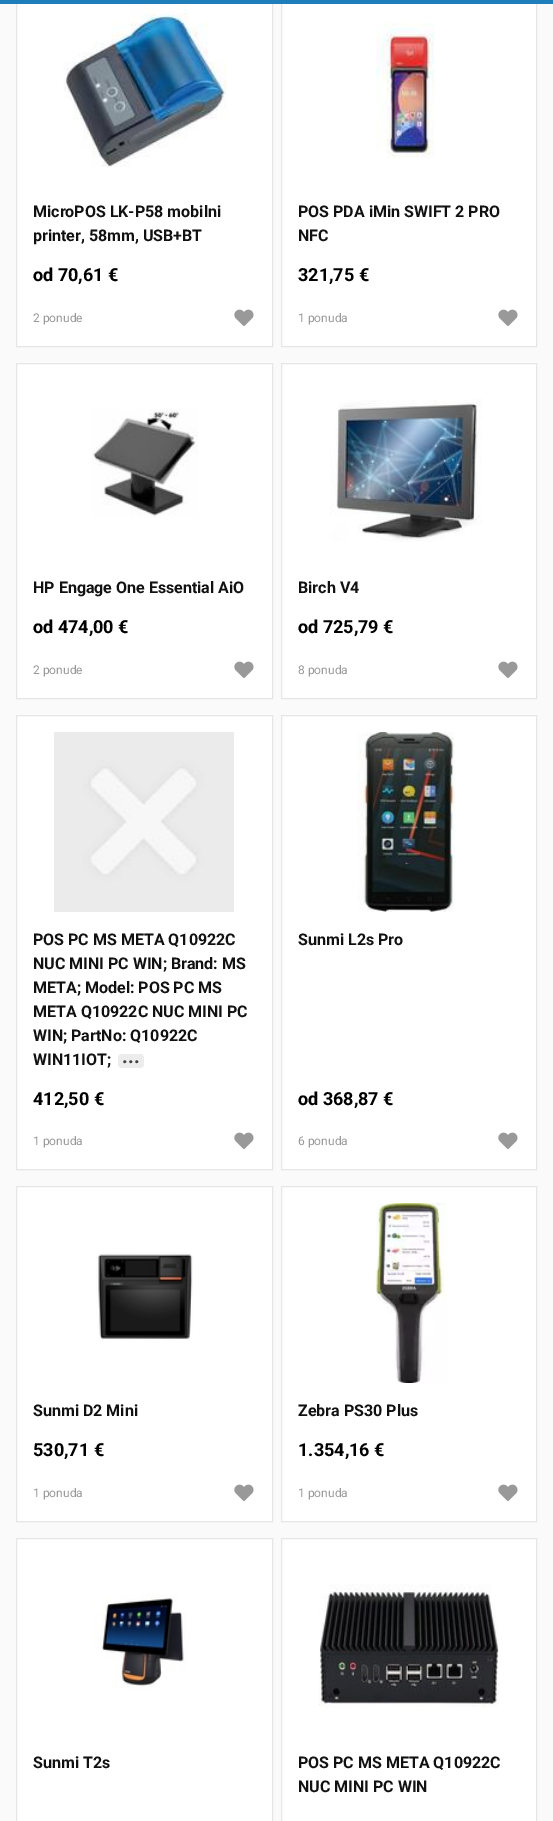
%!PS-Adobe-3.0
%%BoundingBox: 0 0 553 1821
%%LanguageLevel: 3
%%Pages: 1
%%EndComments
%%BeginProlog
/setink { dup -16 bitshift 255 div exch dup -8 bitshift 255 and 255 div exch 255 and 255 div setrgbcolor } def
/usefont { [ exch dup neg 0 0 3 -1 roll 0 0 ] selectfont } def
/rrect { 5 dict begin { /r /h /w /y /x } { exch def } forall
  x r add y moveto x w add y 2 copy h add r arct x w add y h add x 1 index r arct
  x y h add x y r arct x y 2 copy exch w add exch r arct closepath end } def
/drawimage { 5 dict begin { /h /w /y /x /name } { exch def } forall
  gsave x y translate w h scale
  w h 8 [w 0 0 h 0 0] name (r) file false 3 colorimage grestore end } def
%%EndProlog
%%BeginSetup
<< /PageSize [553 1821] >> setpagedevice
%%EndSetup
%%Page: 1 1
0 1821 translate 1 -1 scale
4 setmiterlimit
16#FAFAFA setink
0 0 553 1821 rectfill
16#FFFFFF setink
17 4 255 342 rectfill
16#E6E6E6 setink
16.5 -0.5 256 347 rectstroke
16#FFFFFF setink
282 4 254 342 rectfill
16#E6E6E6 setink
281.5 -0.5 255 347 rectstroke
16#1D7EBA setink
0 0 553 4 rectfill
(img1.raw) 63 4 164 163 drawimage
/Roboto-Bold 16 usefont
16#111111 setink
33 217 moveto (MicroPOS LK-P58 mobilni) show
33 241 moveto (printer, 58mm, USB+BT) show
/Roboto-Bold 18 usefont
16#000000 setink
33 281 moveto (od 70,61 €) show
/Roboto-Regular 12 usefont
16#999999 setink
33 322 moveto (2 ponude) show
(img2.raw) 234 309 20 17 drawimage
(img3.raw) 376 23 59 135 drawimage
/Roboto-Bold 16 usefont
16#111111 setink
298 217 moveto (POS PDA iMin SWIFT 2 PRO) show
298 241 moveto (NFC) show
/Roboto-Bold 18 usefont
16#000000 setink
298 281 moveto (321,75 €) show
/Roboto-Regular 12 usefont
16#999999 setink
298 322 moveto (1 ponuda) show
(img2.raw) 498 309 20 17 drawimage
16#FFFFFF setink
16.5 363.5 moveto 272.5 363.5 lineto 272.5 698.5 lineto 16.5 698.5 lineto closepath gsave fill grestore
16#E6E6E6 setink
stroke
(img4.raw) 92 409 106 109 drawimage
/Roboto-Bold 16 usefont
16#111111 setink
33 593 moveto (HP Engage One Essential AiO) show
/Roboto-Bold 18 usefont
16#000000 setink
33 633 moveto (od 474,00 €) show
/Roboto-Regular 12 usefont
16#999999 setink
33 674 moveto (2 ponude) show
(img2.raw) 234 661 20 17 drawimage
16#FFFFFF setink
281.5 363.5 moveto 536.5 363.5 lineto 536.5 698.5 lineto 281.5 698.5 lineto closepath gsave fill grestore
16#E6E6E6 setink
stroke
(img5.raw) 330 399 152 143 drawimage
/Roboto-Bold 16 usefont
16#111111 setink
298 593 moveto (Birch V4) show
/Roboto-Bold 18 usefont
16#000000 setink
298 633 moveto (od 725,79 €) show
/Roboto-Regular 12 usefont
16#999999 setink
298 674 moveto (8 ponuda) show
(img2.raw) 498 661 20 17 drawimage
16#FFFFFF setink
16.5 715.5 moveto 272.5 715.5 lineto 272.5 1169.5 lineto 16.5 1169.5 lineto closepath gsave fill grestore
16#E6E6E6 setink
stroke
(img6.raw) 54 732 180 180 drawimage
/Roboto-Bold 16 usefont
16#111111 setink
[
    [(POS PC MS META Q10922C) 33 945]
    [(NUC MINI PC WIN; Brand: MS) 33 969]
    [(META; Model: POS PC MS) 33 993]
    [(META Q10922C NUC MINI PC) 33 1017]
    [(WIN; PartNo: Q10922C) 33 1041]
    [(WIN11IOT;) 33 1065]
] { aload pop moveto show } forall
16#ECECEC setink
118 1054 26 14 4 rrect fill
/Roboto-Bold 20 usefont
16#404040 setink
122 1063 moveto (...) show
/Roboto-Bold 18 usefont
16#000000 setink
33 1105 moveto (412,50 €) show
/Roboto-Regular 12 usefont
16#999999 setink
33 1145 moveto (1 ponuda) show
(img2.raw) 234 1132 20 17 drawimage
16#FFFFFF setink
281.5 715.5 moveto 536.5 715.5 lineto 536.5 1169.5 lineto 281.5 1169.5 lineto closepath gsave fill grestore
16#E6E6E6 setink
stroke
(img7.raw) 357 732 98 180 drawimage
/Roboto-Bold 16 usefont
16#111111 setink
298 945 moveto (Sunmi L2s Pro) show
/Roboto-Bold 18 usefont
16#000000 setink
298 1105 moveto (od 368,87 €) show
/Roboto-Regular 12 usefont
16#999999 setink
298 1145 moveto (6 ponuda) show
(img2.raw) 498 1132 20 17 drawimage
16#FFFFFF setink
16.5 1186.5 moveto 272.5 1186.5 lineto 272.5 1521.5 lineto 16.5 1521.5 lineto closepath gsave fill grestore
16#E6E6E6 setink
stroke
(img8.raw) 96 1252 97 89 drawimage
/Roboto-Bold 16 usefont
16#111111 setink
33 1416 moveto (Sunmi D2 Mini) show
/Roboto-Bold 18 usefont
16#000000 setink
33 1456 moveto (530,71 €) show
/Roboto-Regular 12 usefont
16#999999 setink
33 1497 moveto (1 ponuda) show
(img2.raw) 234 1484 20 17 drawimage
16#FFFFFF setink
281.5 1186.5 moveto 536.5 1186.5 lineto 536.5 1521.5 lineto 281.5 1521.5 lineto closepath gsave fill grestore
16#E6E6E6 setink
stroke
(img9.raw) 375 1203 72 180 drawimage
/Roboto-Bold 16 usefont
16#111111 setink
298 1416 moveto (Zebra PS30 Plus) show
/Roboto-Bold 18 usefont
16#000000 setink
298 1456 moveto (1.354,16 €) show
/Roboto-Regular 12 usefont
16#999999 setink
298 1497 moveto (1 ponuda) show
(img2.raw) 498 1484 20 17 drawimage
16#FFFFFF setink
16.5 1538.5 moveto 272.5 1538.5 lineto 272.5 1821.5 lineto 16.5 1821.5 lineto closepath gsave fill grestore
16#E6E6E6 setink
stroke
(img10.raw) 93 1594 94 95 drawimage
/Roboto-Bold 16 usefont
16#111111 setink
33 1768 moveto (Sunmi T2s) show
16#FFFFFF setink
281.5 1538.5 moveto 536.5 1538.5 lineto 536.5 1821.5 lineto 281.5 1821.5 lineto closepath gsave fill grestore
16#E6E6E6 setink
stroke
(img11.raw) 319 1584 180 125 drawimage
16#111111 setink
298 1768 moveto (POS PC MS META Q10922C) show
298 1792 moveto (NUC MINI PC WIN) show
showpage
%%EOF
